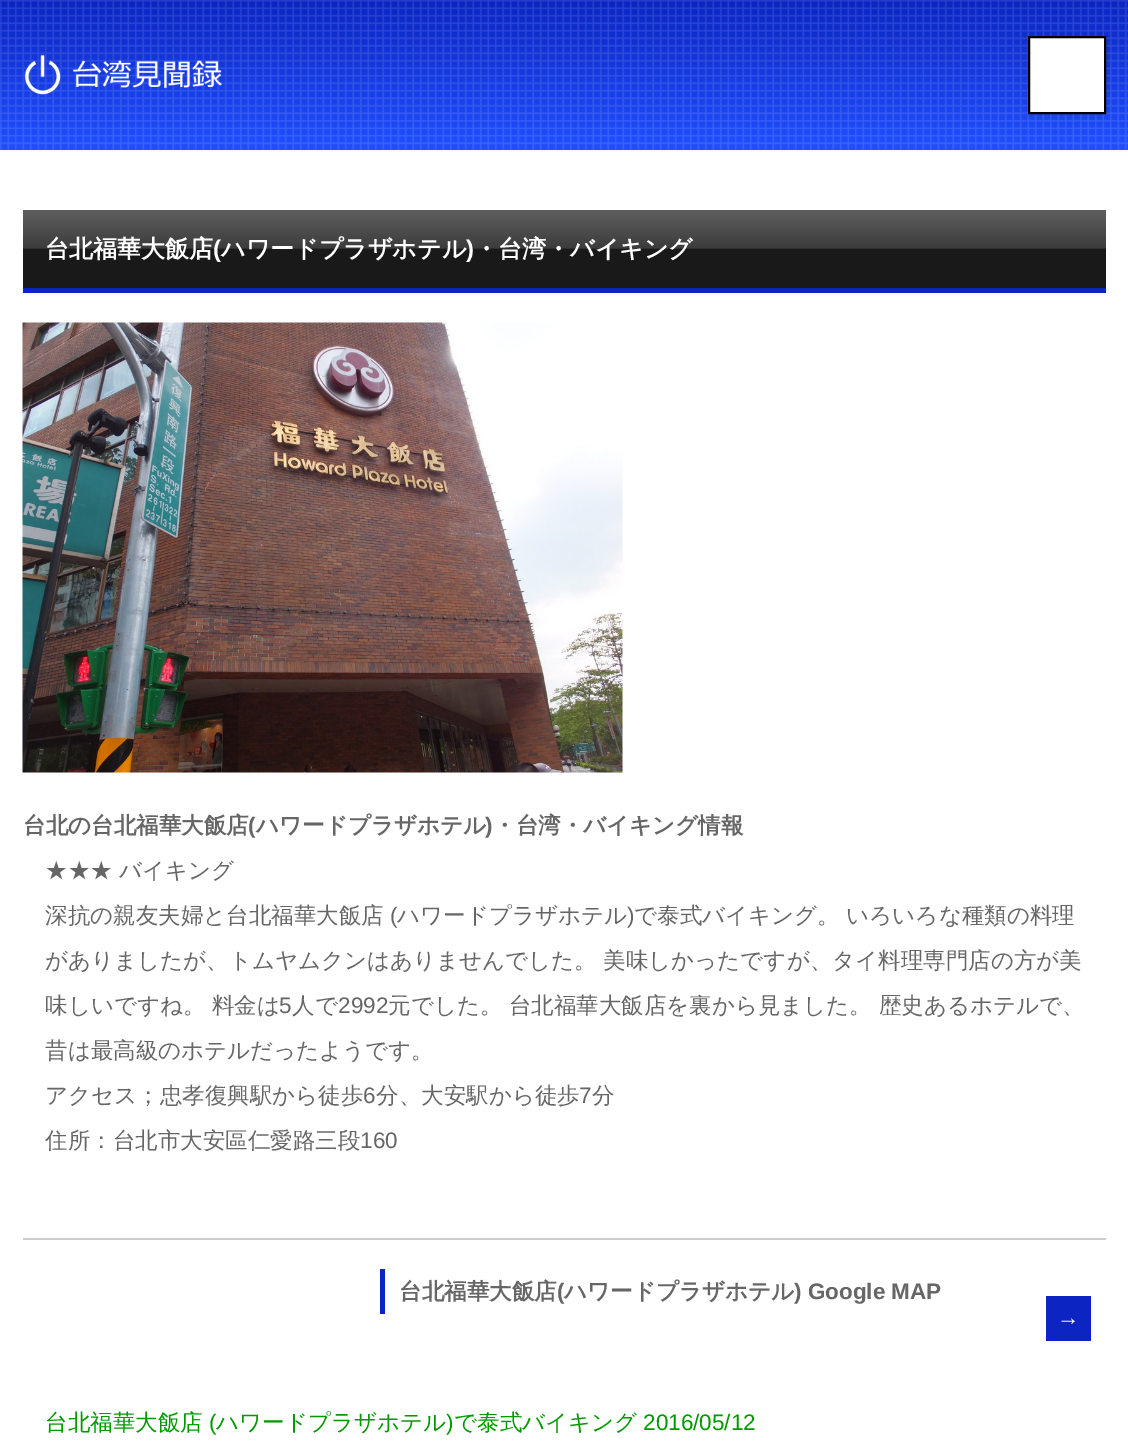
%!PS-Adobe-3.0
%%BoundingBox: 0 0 1128 1441
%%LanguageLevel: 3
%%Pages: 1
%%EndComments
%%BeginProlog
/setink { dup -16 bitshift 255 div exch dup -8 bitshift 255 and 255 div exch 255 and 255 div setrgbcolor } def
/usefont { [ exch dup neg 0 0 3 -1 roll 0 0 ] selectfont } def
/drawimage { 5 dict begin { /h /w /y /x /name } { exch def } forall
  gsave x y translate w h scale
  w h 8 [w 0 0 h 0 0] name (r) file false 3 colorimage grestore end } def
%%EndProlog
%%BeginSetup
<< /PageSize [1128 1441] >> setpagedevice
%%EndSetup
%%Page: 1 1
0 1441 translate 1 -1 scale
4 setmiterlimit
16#FFFFFF setink
0 0 1128 1441 rectfill
(img1.raw) 0 0 1128 150 drawimage
(img2.raw) 24 54 198 41 drawimage
1029 37 moveto 1105 37 lineto 1105 113 lineto 1029 113 lineto closepath gsave fill grestore
16#000000 setink
2 setlinewidth
stroke
gsave 23 210 moveto 1106 210 lineto 1106 288 lineto 23 288 lineto closepath clip newpath
<< /ShadingType 2 /ColorSpace /DeviceRGB /Coords [564 210 564 288] /Extend [true true] /Function << /FunctionType 3 /Domain [0 1] /Functions [<< /FunctionType 2 /Domain [0 1] /C0 [0.369 0.369 0.369] /C1 [0.235 0.235 0.235] /N 1 >> << /FunctionType 2 /Domain [0 1] /C0 [0.235 0.235 0.235] /C1 [0.098 0.098 0.098] /N 1 >> << /FunctionType 2 /Domain [0 1] /C0 [0.098 0.098 0.098] /C1 [0.098 0.098 0.098] /N 1 >>] /Bounds [0.49 0.5] /Encode [0 1 0 1 0 1] >> >> shfill grestore
16#0B24C2 setink
23 288 1083 5 rectfill
/WenQuanYiZenHei-Bold 24 usefont
16#FFFFFF setink
45 257 moveto (台北福華大飯店) show
/LiberationSans-Bold 24 usefont
213 257 moveto (\() show
/WenQuanYiZenHei-Bold 24 usefont
221 257 moveto (ハワードプラザホテル) show
/LiberationSans-Bold 24 usefont
466 257 moveto (\)) show
/WenQuanYiZenHei-Bold 24 usefont
474 257 moveto (・台湾・バイキング) show
(img3.raw) 22 322 601 451 drawimage
/WenQuanYiZenHei-Bold 22.5 usefont
16#666666 setink
23 833 moveto (台北の台北福華大飯店) show
/LiberationSans-Bold 22.5 usefont
248 833 moveto (\() show
/WenQuanYiZenHei-Bold 22.5 usefont
256 833 moveto (ハワードプラザホテル) show
/LiberationSans-Bold 22.5 usefont
485 833 moveto (\)) show
/WenQuanYiZenHei-Bold 22.5 usefont
493 833 moveto (・台湾・バイキング情報) show
/WenQuanYiZenHei-Medium 22.5 usefont
45 878 moveto (★★★ バイキング) show
45 923 moveto (深抗の親友夫婦と台北福華大飯店) show
/LiberationSans-Regular 22.5 usefont
390 923 moveto (\() show
/WenQuanYiZenHei-Medium 22.5 usefont
397 923 moveto (ハワードプラザホテル) show
/LiberationSans-Regular 22.5 usefont
627 923 moveto (\)) show
/WenQuanYiZenHei-Medium 22.5 usefont
[
    [(で泰式バイキング。 いろいろな種類の料理) 634 923]
    [(がありましたが、トムヤムクンはありませんでした。 美味しかったですが、タイ料理専門店の方が美) 45 968]
    [(味しいですね。 料金は) 45 1013]
] { aload pop moveto show } forall
/LiberationSans-Regular 22.5 usefont
279 1013 moveto (5) show
/WenQuanYiZenHei-Medium 22.5 usefont
292 1013 moveto (人で) show
/LiberationSans-Regular 22.5 usefont
338 1013 moveto (2992) show
/WenQuanYiZenHei-Medium 22.5 usefont
[
    [(元でした。 台北福華大飯店を裏から見ました。 歴史あるホテルで、) 388 1013]
    [(昔は最高級のホテルだったようです。) 45 1058]
    [(アクセス；忠孝復興駅から徒歩) 45 1103]
] { aload pop moveto show } forall
/LiberationSans-Regular 22.5 usefont
363 1103 moveto (6) show
/WenQuanYiZenHei-Medium 22.5 usefont
376 1103 moveto (分、大安駅から徒歩) show
/LiberationSans-Regular 22.5 usefont
579 1103 moveto (7) show
/WenQuanYiZenHei-Medium 22.5 usefont
592 1103 moveto (分) show
45 1148 moveto (住所：台北市大安區仁愛路三段) show
/LiberationSans-Regular 22.5 usefont
360 1148 moveto (160) show
16#CCCCCC setink
23 1238 1083 2 rectfill
16#0B24C2 setink
380 1269 5 45 rectfill
/WenQuanYiZenHei-Bold 22.5 usefont
16#666666 setink
399 1299 moveto (台北福華大飯店) show
/LiberationSans-Bold 22.5 usefont
557 1299 moveto (\() show
/WenQuanYiZenHei-Bold 22.5 usefont
564 1299 moveto (ハワードプラザホテル) show
/LiberationSans-Bold 22.5 usefont
794 1299 moveto (\) Google MAP) show
16#0B24C2 setink
1046 1296 45 45 rectfill
/LiberationSans-Regular 22.5 usefont
16#FFFFFF setink
1057 1325 moveto (→) show
/WenQuanYiZenHei-Medium 22.5 usefont
16#009900 setink
45 1430 moveto (台北福華大飯店) show
/LiberationSans-Regular 22.5 usefont
209 1430 moveto (\() show
/WenQuanYiZenHei-Medium 22.5 usefont
216 1430 moveto (ハワードプラザホテル) show
/LiberationSans-Regular 22.5 usefont
446 1430 moveto (\)) show
/WenQuanYiZenHei-Medium 22.5 usefont
454 1430 moveto (で泰式バイキング) show
/LiberationSans-Regular 22.5 usefont
643 1430 moveto (2016/05/12) show
showpage
%%EOF
